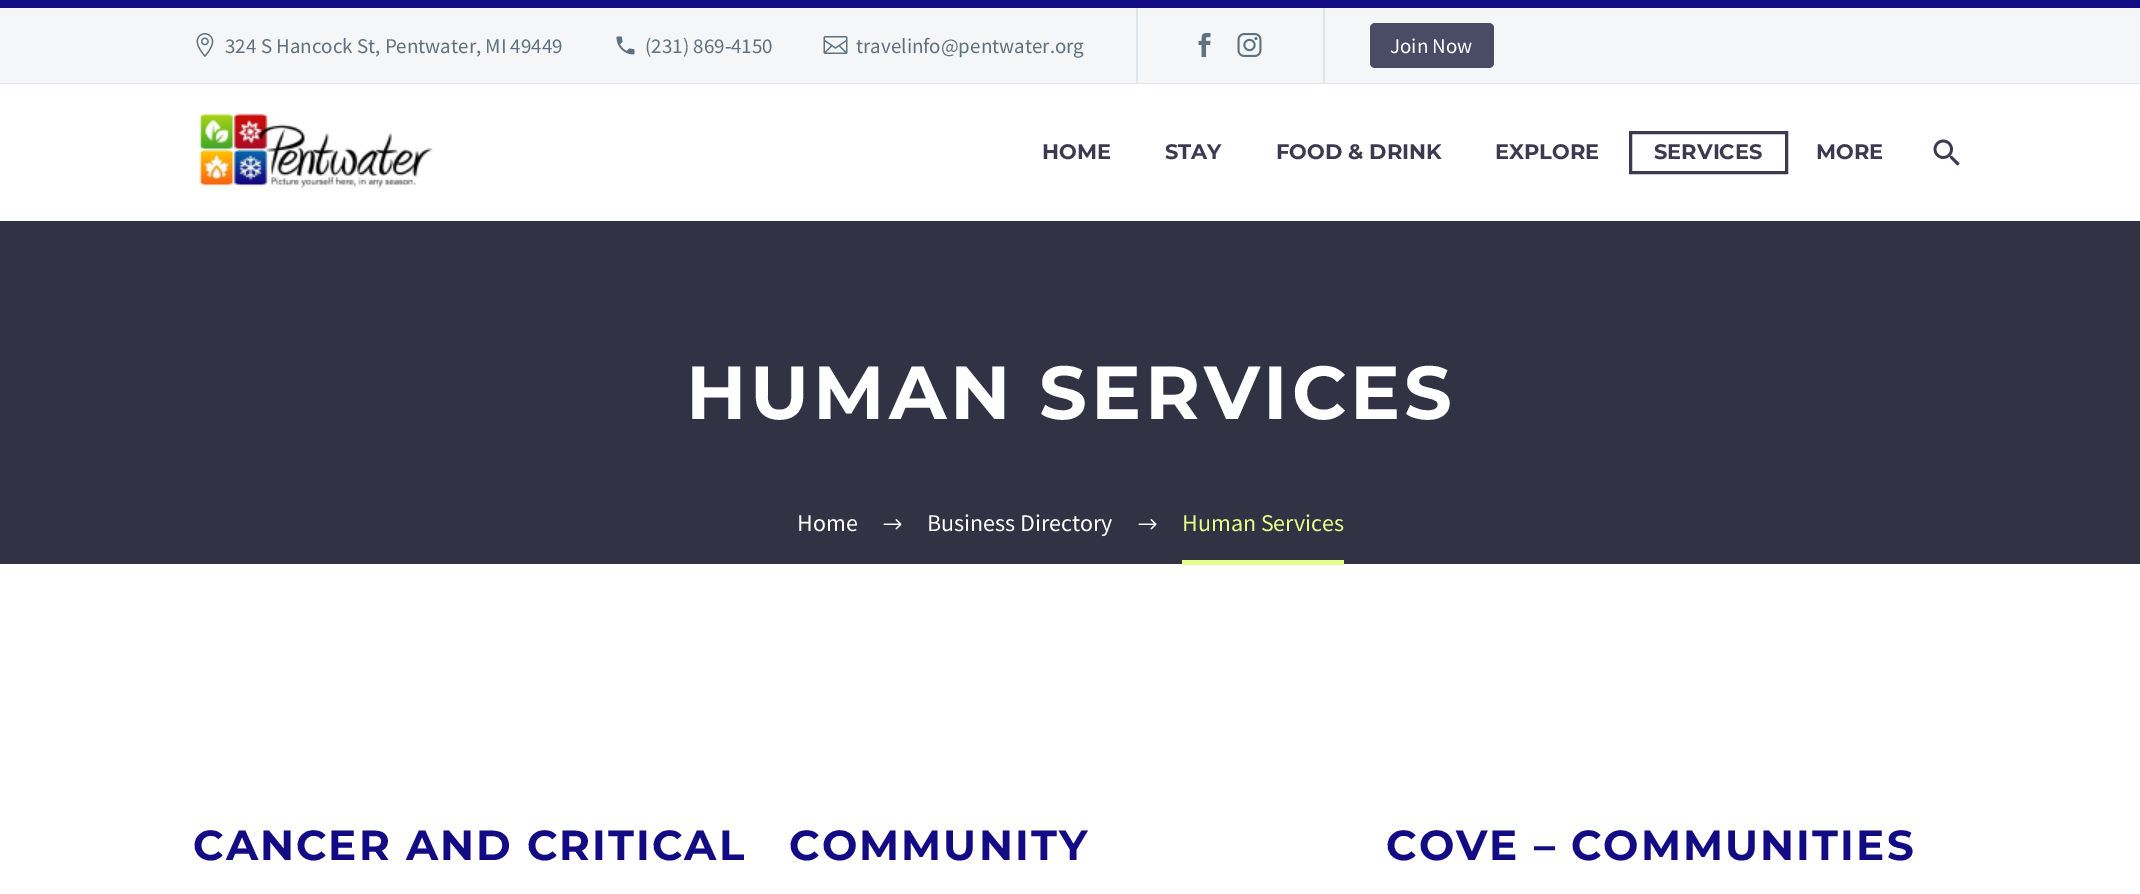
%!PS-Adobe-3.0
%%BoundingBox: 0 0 2140 894
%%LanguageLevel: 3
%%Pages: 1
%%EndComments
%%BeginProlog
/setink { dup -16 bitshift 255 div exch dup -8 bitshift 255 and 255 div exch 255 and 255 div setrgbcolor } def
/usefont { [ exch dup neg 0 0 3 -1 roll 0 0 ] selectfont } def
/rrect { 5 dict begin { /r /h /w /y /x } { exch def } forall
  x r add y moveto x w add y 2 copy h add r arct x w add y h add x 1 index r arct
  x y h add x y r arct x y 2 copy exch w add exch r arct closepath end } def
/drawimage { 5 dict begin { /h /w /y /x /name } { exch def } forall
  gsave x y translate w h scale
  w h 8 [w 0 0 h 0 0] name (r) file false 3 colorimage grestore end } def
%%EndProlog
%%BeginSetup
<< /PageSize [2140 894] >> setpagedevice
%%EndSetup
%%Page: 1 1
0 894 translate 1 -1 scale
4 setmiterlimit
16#F4F6F7 setink
0 0 2140 894 rectfill
16#130B84 setink
0 0 2140 8 rectfill
16#DFE5E8 setink
0 83 2140 1 rectfill
(img1.raw) 196 33 18 24 drawimage
/SourceSansPro-Regular 21 usefont
16#5F727F setink
225 53 moveto (324 S Hancock St, Pentwater, MI 49449) show
(img2.raw) 616 36 19 19 drawimage
645 53 moveto (\(231\) 869-4150) show
(img3.raw) 823 36 25 18 drawimage
856 53 moveto (travelinfo@pentwater.org) show
16#DFE5E8 setink
1136 8 2 75 rectfill
(img4.raw) 1198 33 13 24 drawimage
(img5.raw) 1237 33 25 24 drawimage
1323 8 2 75 rectfill
16#494C64 setink
1370 23 124 45 5 rrect fill
16#FFFFFF setink
1390 53 moveto (Join Now) show
0 84 2140 137 rectfill
(img6.raw) 199 113 234 76 drawimage
/Montserrat-Bold 21 usefont
16#3C3950 setink
[
    [(HOME) 1042 159]
    [(STAY) 1165 159]
    [(FOOD & DRINK) 1276 159]
    [(EXPLORE) 1495 159]
] { aload pop moveto show } forall
3 setlinewidth
1630.5 132.5 156 40 rectstroke
1654 159 moveto (SERVICES) show
1816 159 moveto (MORE) show
(img7.raw) 1933 139 27 27 drawimage
16#333144 setink
0 221 2140 343 rectfill
/Montserrat-Bold 75 usefont
16#FFFFFF setink
686 419 moveto 3.75 0 (HUMAN SERVICES) ashow
/SourceSansPro-Regular 24 usefont
797 531 moveto (Home) show
(img8.raw) 883 519 19 11 drawimage
927 531 moveto (Business Directory) show
(img8.raw) 1138 519 19 11 drawimage
0 564 2140 330 rectfill
16#E7FF89 setink
1182 560 162 5 rectfill
1182 531 moveto (Human Services) show
/Montserrat-Bold 42 usefont
16#130B84 setink
193 860 moveto 2.1 0 (CANCER AND CRITICAL) ashow
789 860 moveto 2.1 0 (COMMUNITY) ashow
1386 860 moveto 2.1 0 (COVE – COMMUNITIES) ashow
showpage
%%EOF
